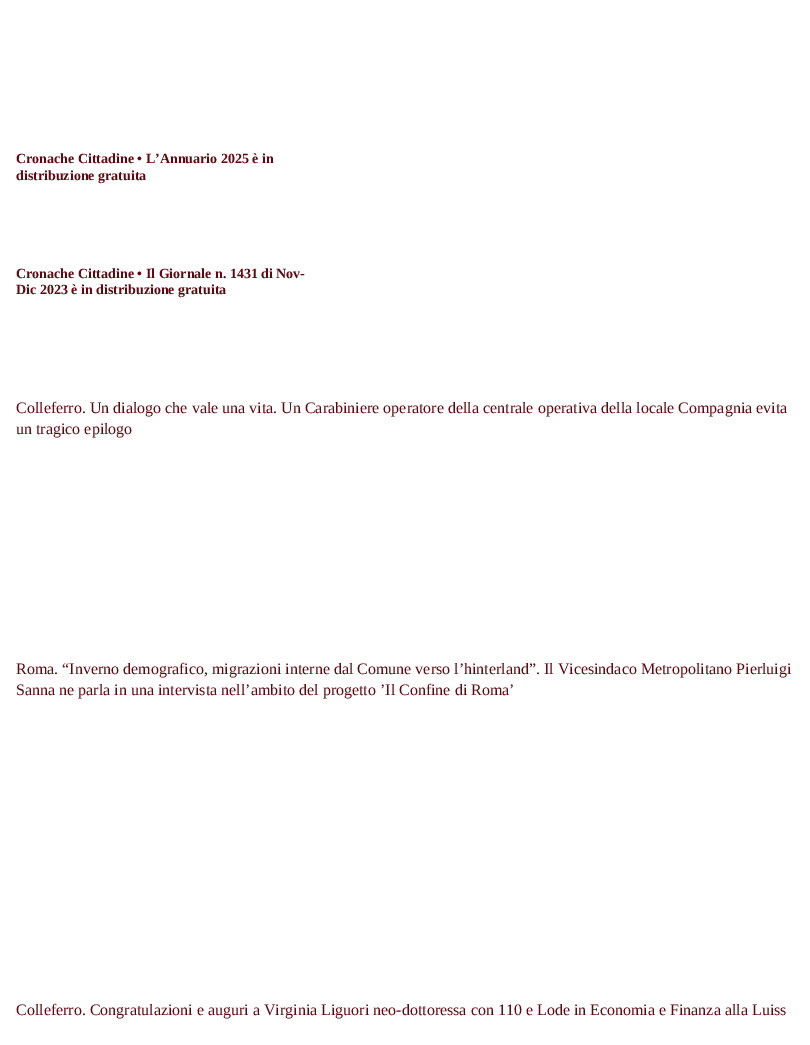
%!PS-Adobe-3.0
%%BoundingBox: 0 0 810 1045
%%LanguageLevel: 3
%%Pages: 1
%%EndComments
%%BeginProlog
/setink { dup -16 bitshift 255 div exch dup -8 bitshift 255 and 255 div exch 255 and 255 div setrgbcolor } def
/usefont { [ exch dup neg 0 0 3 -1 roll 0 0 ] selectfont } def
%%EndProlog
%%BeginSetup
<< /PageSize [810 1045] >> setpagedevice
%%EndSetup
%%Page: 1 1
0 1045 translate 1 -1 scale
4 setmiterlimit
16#FFFFFF setink
0 0 810 1045 rectfill
/LiberationSerif-Bold 14 usefont
16#60070F setink
[
    [(Cronache Cittadine • L’Annuario 2025 è in) 16 163]
    [(distribuzione gratuita) 16 180]
    [(Cronache Cittadine • Il Giornale n. 1431 di Nov-) 16 278]
    [(Dic 2023 è in distribuzione gratuita) 16 294]
] { aload pop moveto show } forall
/LiberationSerif-Regular 16 usefont
[
    [(Colleferro. Un dialogo che vale una vita. Un Carabiniere operatore della centrale operativa della locale Compagnia evita) 16 413]
    [(un tragico epilogo) 16 434]
    [(Roma. “Inverno demografico, migrazioni interne dal Comune verso l’hinterland”. Il Vicesindaco Metropolitano Pierluigi) 16 674]
    [(Sanna ne parla in una intervista nell’ambito del progetto ’Il Confine di Roma’) 16 695]
    [(Colleferro. Congratulazioni e auguri a Virginia Liguori neo-dottoressa con 110 e Lode in Economia e Finanza alla Luiss) 16 1015]
] { aload pop moveto show } forall
showpage
%%EOF
